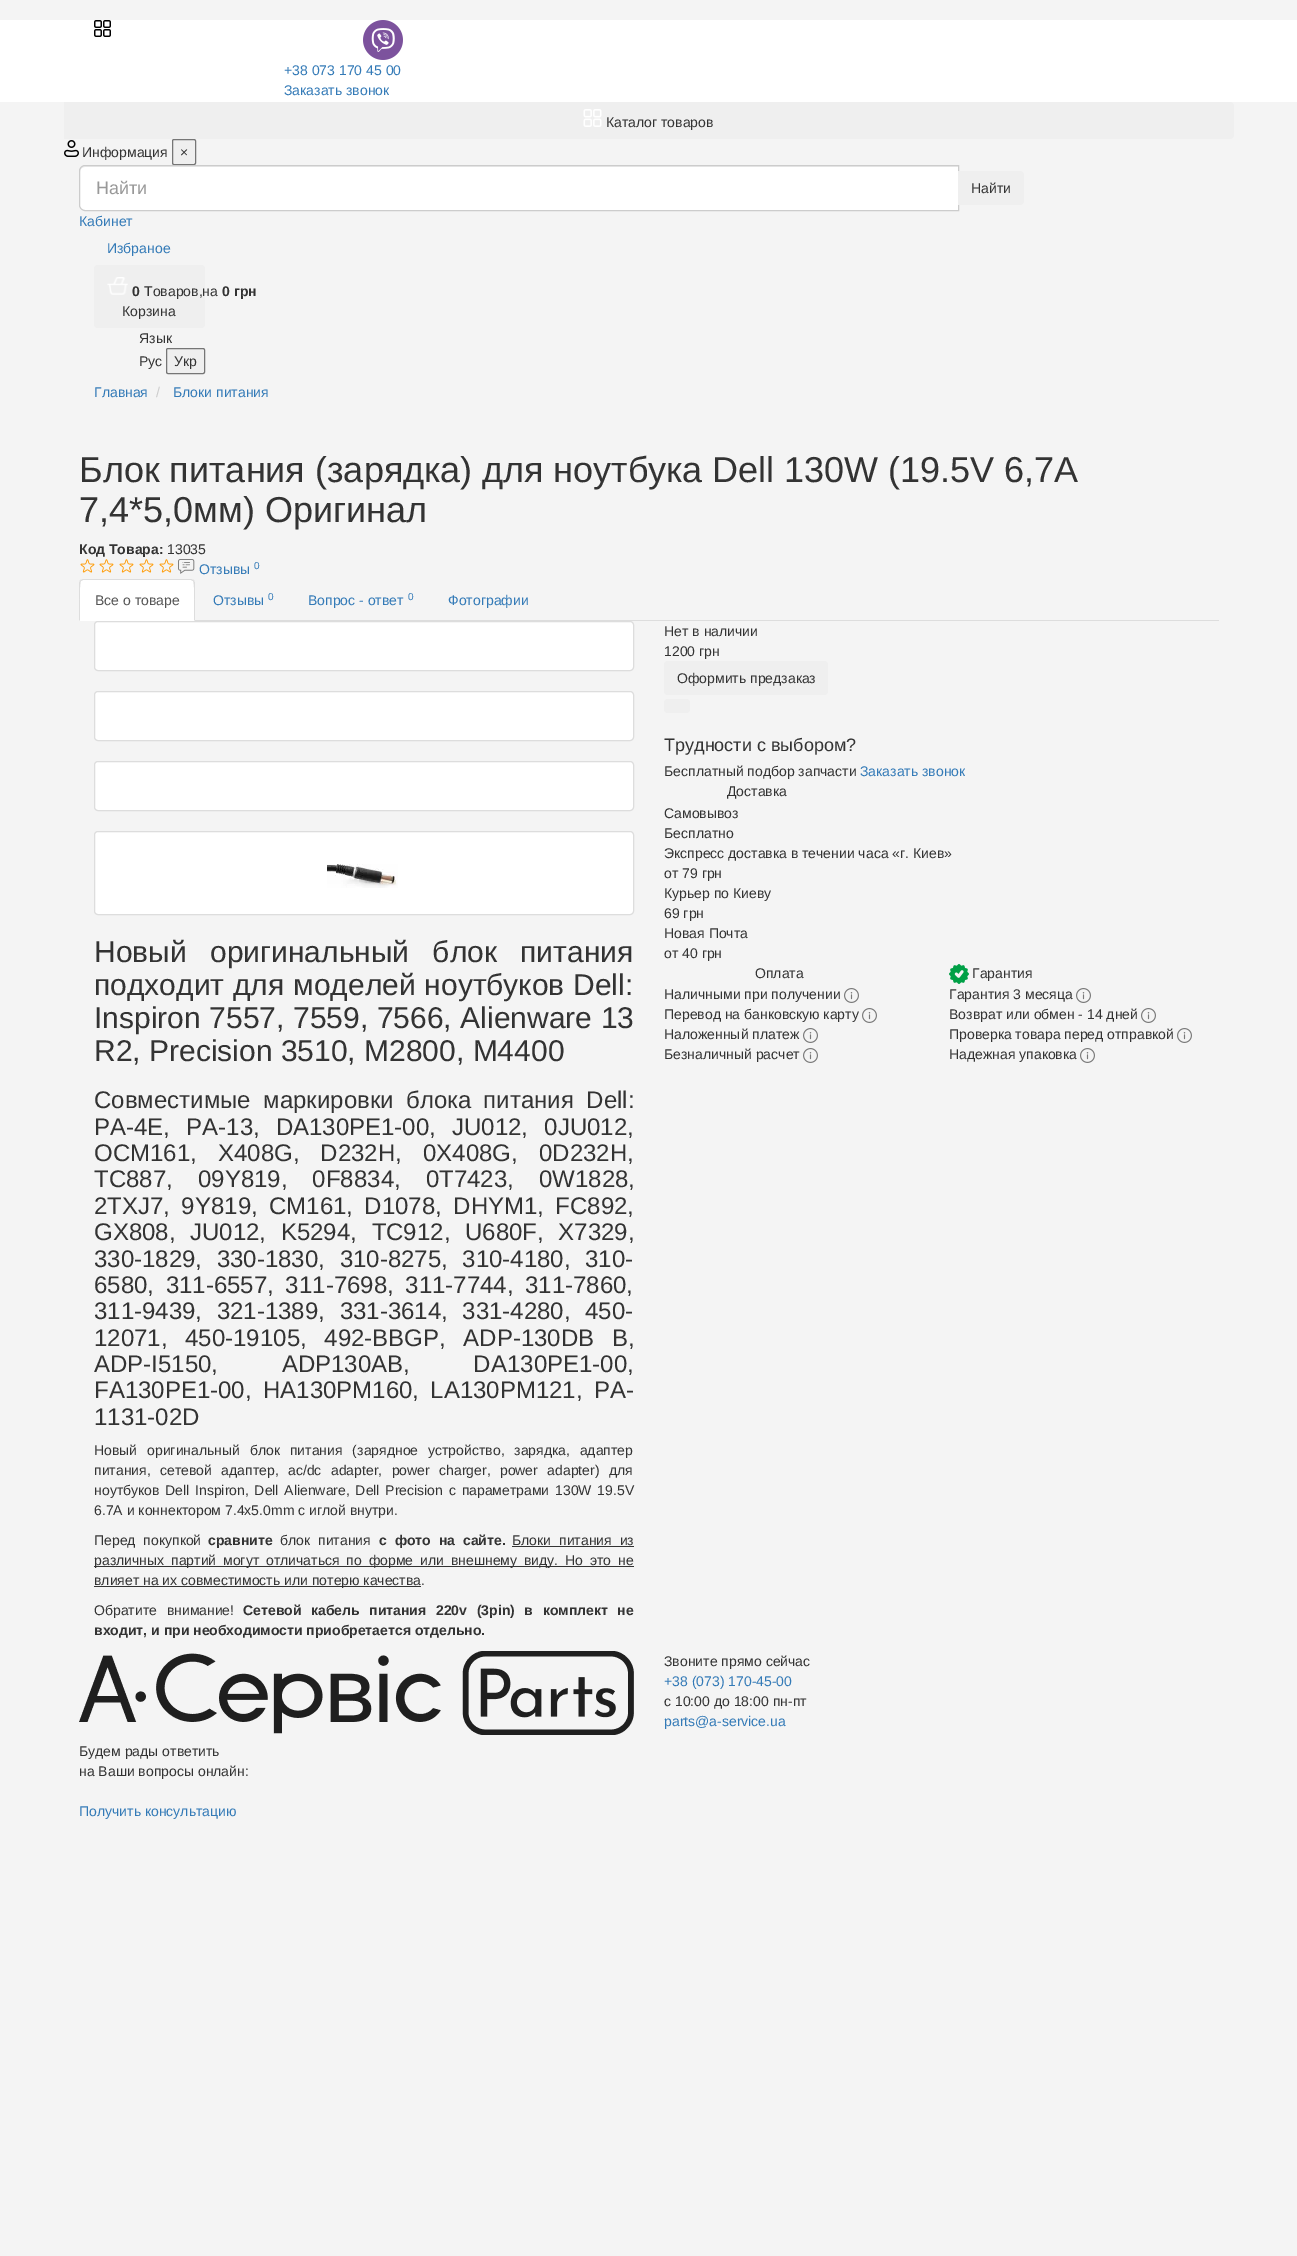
%!PS-Adobe-3.0
%%BoundingBox: 0 0 1297 2256
%%LanguageLevel: 3
%%Pages: 1
%%EndComments
%%BeginProlog
/setink { dup -16 bitshift 255 div exch dup -8 bitshift 255 and 255 div exch 255 and 255 div setrgbcolor } def
/usefont { [ exch dup neg 0 0 3 -1 roll 0 0 ] selectfont } def
/rrect { 5 dict begin { /r /h /w /y /x } { exch def } forall
  x r add y moveto x w add y 2 copy h add r arct x w add y h add x 1 index r arct
  x y h add x y r arct x y 2 copy exch w add exch r arct closepath end } def
/drawimage { 5 dict begin { /h /w /y /x /name } { exch def } forall
  gsave x y translate w h scale
  w h 8 [w 0 0 h 0 0] name (r) file false 3 colorimage grestore end } def
%%EndProlog
%%BeginSetup
<< /PageSize [1297 2256] >> setpagedevice
%%EndSetup
%%Page: 1 1
0 2256 translate 1 -1 scale
4 setmiterlimit
16#F4F4F4 setink
0 0 1297 2256 rectfill
16#FFFFFF setink
0 20 1297 82 rectfill
(img1.raw) 94 20 17 17 drawimage
(img2.raw) 363 20 40 40 drawimage
/LiberationSans-Regular 14 usefont
16#337AB7 setink
284 75 moveto (+38 073 170 45 00) show
284 95 moveto (Заказать звонок) show
16#EFEFEF setink
64 102 moveto 1230 102 lineto 1232 102 1234 104 1234 106 curveto 1234 135 lineto 1234 137 1232 139 1230 139 curveto 64 139 lineto closepath fill
(img3.raw) 583 109 19 18 drawimage
16#333333 setink
606 127 moveto (Каталог товаров) show
(img4.raw) 64 140 15 17 drawimage
82 157 moveto (Информация) show
16#EFEFEF setink
172.5 139.5 23 25 1.5 rrect gsave fill grestore
16#767676 setink
stroke
16#333333 setink
180 157 moveto (×) show
16#FFFFFF setink
85 165 moveto 959 165 lineto 959 211 lineto 85 211 lineto 81.5 211 79 208.5 79 205 curveto 79 171 lineto 79 167.5 81.5 165 85 165 curveto closepath fill
16#ECECEC setink
85 167 moveto 958 167 lineto 958 166 lineto 85 166 lineto 82 166 80 168 80 171 curveto 80 172 lineto 80 169 82 167 85 167 curveto closepath fill
16#CCCCCC setink
85 165.5 moveto 958.5 165.5 lineto 958.5 210.5 lineto 85 210.5 lineto 82 210.5 79.5 208 79.5 205 curveto 79.5 171 lineto 79.5 168 82 165.5 85 165.5 curveto closepath stroke
/LiberationSans-Regular 18 usefont
16#999999 setink
96 194 moveto (Найти) show
16#EFEFEF setink
958 171 moveto 1020 171 lineto 1022 171 1024 173 1024 175 curveto 1024 201 lineto 1024 203 1022 205 1020 205 curveto 958 205 lineto closepath fill
/LiberationSans-Regular 14 usefont
16#333333 setink
971 193 moveto (Найти) show
16#337AB7 setink
79 226 moveto (Кабинет) show
107 253 moveto (Избраное) show
16#EFEFEF setink
94 265 111 63 4 rrect fill
(img5.raw) 107 277 21 18 drawimage
/LiberationSans-Bold 14 usefont
16#333333 setink
132 296 moveto (0) show
/LiberationSans-Regular 14 usefont
144 296 moveto (Tоваров,на) show
/LiberationSans-Bold 14 usefont
222 296 moveto (0 грн) show
/LiberationSans-Regular 14 usefont
[
    [(Корзина) 122 316]
    [(Язык) 139 343]
    [(Рус) 139 366]
] { aload pop moveto show } forall
16#EFEFEF setink
166.5 348.5 38 25 1.5 rrect gsave fill grestore
16#767676 setink
stroke
16#333333 setink
174 366 moveto (Укр) show
16#337AB7 setink
94 397 moveto (Главная) show
16#CCCCCC setink
156 397 moveto (/) show
16#337AB7 setink
173 397 moveto (Блоки питания) show
/LiberationSans-Regular 36 usefont
16#333333 setink
79 482 moveto (Блок питания \(зарядка\) для ноутбука Dell 130W \(19.5V 6,7А) show
79 522 moveto (7,4*5,0мм\) Оригинал) show
/LiberationSans-Bold 14 usefont
79 554 moveto (Код Товара:) show
/LiberationSans-Regular 14 usefont
167 554 moveto (13035) show
(img6.raw) 80 559 15 14 drawimage
(img6.raw) 99 559 15 14 drawimage
(img6.raw) 119 559 15 14 drawimage
(img6.raw) 139 559 15 14 drawimage
(img6.raw) 159 559 15 14 drawimage
(img7.raw) 178 559 17 15 drawimage
16#337AB7 setink
199 574 moveto (Отзывы) show
/LiberationSans-Regular 10 usefont
254 569 moveto (0) show
16#DDDDDD setink
195 620 1024 1 rectfill
16#FFFFFF setink
83 579 moveto 191 579 lineto 193 579 195 581 195 583 curveto 195 621 lineto 79 621 lineto 79 583 lineto 79 581 81 579 83 579 curveto closepath fill
16#DDDDDD setink
83 579 moveto 80 580 lineto 81 581 lineto 83 580 lineto 191 580 lineto 193 581 lineto 194 580 lineto 191 579 lineto closepath fill
195 621 moveto 195 583 lineto 195 582 194 581 194 580 curveto 193 581 lineto 195 583 194 615 194 620 curveto closepath fill
79 621 moveto 80 620 lineto 80 615 79 583 81 581 curveto 80 580 lineto 79 583 lineto closepath fill
/LiberationSans-Regular 14 usefont
16#555555 setink
95 605 moveto (Все о товаре) show
16#337AB7 setink
213 605 moveto (Отзывы) show
/LiberationSans-Regular 10 usefont
268 600 moveto (0) show
/LiberationSans-Regular 14 usefont
308 605 moveto (Вопрос - ответ) show
/LiberationSans-Regular 10 usefont
408 600 moveto (0) show
/LiberationSans-Regular 14 usefont
448 605 moveto (Фотографии) show
16#333333 setink
664 636 moveto (Нет в наличии) show
664 656 moveto (1200 грн) show
16#EFEFEF setink
664 661 164 34 4 rrect fill
16#333333 setink
677 683 moveto (Оформить предзаказ) show
16#EFEFEF setink
664 699 26 14 4 rrect fill
/LiberationSans-Regular 18 usefont
16#333333 setink
664 751 moveto (Трудности с выбором?) show
/LiberationSans-Regular 14 usefont
664 776 moveto (Бесплатный подбор запчасти) show
16#337AB7 setink
860 776 moveto (Заказать звонок) show
16#333333 setink
[
    [(Доставка) 727 796]
    [(Самовывоз) 664 818]
    [(Бесплатно) 664 838]
    [(Экспресс доставка в течении часа «г. Киев») 664 858]
    [(от 79 грн) 664 878]
    [(Курьер по Киеву) 664 898]
    [(69 грн) 664 918]
    [(Новая Почта) 664 938]
    [(от 40 грн) 664 958]
    [(Оплата) 755 978]
    [(Наличными при получении) 664 999]
] { aload pop moveto show } forall
(img8.raw) 844 988 15 15 drawimage
664 1019 moveto (Перевод на банковскую карту) show
(img8.raw) 862 1008 15 15 drawimage
664 1039 moveto (Наложенный платеж) show
(img8.raw) 803 1028 15 15 drawimage
664 1059 moveto (Безналичный расчет) show
(img8.raw) 803 1048 15 15 drawimage
(img9.raw) 949 964 20 20 drawimage
972 978 moveto (Гарантия) show
949 999 moveto (Гарантия 3 месяца) show
(img8.raw) 1076 988 15 15 drawimage
949 1019 moveto (Возврат или обмен - 14 дней) show
(img8.raw) 1141 1008 15 15 drawimage
949 1039 moveto (Проверка товара перед отправкой) show
(img8.raw) 1177 1028 15 15 drawimage
949 1059 moveto (Надежная упаковка) show
(img8.raw) 1080 1048 15 15 drawimage
16#FFFFFF setink
94.5 621.5 539 49 3.5 rrect gsave fill grestore
16#DDDDDD setink
stroke
16#FFFFFF setink
94.5 691.5 539 49 3.5 rrect gsave fill grestore
16#DDDDDD setink
stroke
16#FFFFFF setink
94.5 761.5 539 49 3.5 rrect gsave fill grestore
16#DDDDDD setink
stroke
16#FFFFFF setink
94.5 831.5 539 83 3.5 rrect gsave fill grestore
16#DDDDDD setink
stroke
(img10.raw) 327 864 71 24 drawimage
/LiberationSans-Regular 30 usefont
16#333333 setink
94 962 moveto 15 0 32 (Новый оригинальный блок питания) widthshow
94 995 moveto 0.5 0 32 (подходит для моделей ноутбуков Dell:) widthshow
94 1028 moveto 0.25 0 32 (Inspiron 7557, 7559, 7566, Alienware 13) widthshow
94 1061 moveto (R2, Precision 3510, M2800, M4400) show
/LiberationSans-Regular 24 usefont
94 1108 moveto 5.75 0 32 (Совместимые маркировки блока питания Dell:) widthshow
94 1135 moveto 9.5 0 32 (PA-4E, PA-13, DA130PE1-00, JU012, 0JU012,) widthshow
94 1161 moveto 14.5 0 32 (OCM161, X408G, D232H, 0X408G, 0D232H,) widthshow
94 1187 moveto 18.5 0 32 (TC887, 09Y819, 0F8834, 0T7423, 0W1828,) widthshow
94 1214 moveto 4.75 0 32 (2TXJ7, 9Y819, CM161, D1078, DHYM1, FC892,) widthshow
94 1240 moveto 8 0 32 (GX808, JU012, K5294, TC912, U680F, X7329,) widthshow
94 1267 moveto 8 0 32 (330-1829, 330-1830, 310-8275, 310-4180, 310-) widthshow
94 1293 moveto 5 0 32 (6580, 311-6557, 311-7698, 311-7744, 311-7860,) widthshow
94 1319 moveto 8 0 32 (311-9439, 321-1389, 331-3614, 331-4280, 450-) widthshow
94 1346 moveto 11 0 32 (12071, 450-19105, 492-BBGP, ADP-130DB B,) widthshow
94 1372 moveto 57 0 32 (ADP-I5150, ADP130AB, DA130PE1-00,) widthshow
94 1398 moveto 4.75 0 32 (FA130PE1-00, HA130PM160, LA130PM121, PA-) widthshow
94 1425 moveto (1131-02D) show
/LiberationSans-Regular 14 usefont
94 1455 moveto 6 0 32 (Новый оригинальный блок питания \(зарядное устройство, зарядка, адаптер) widthshow
94 1475 moveto 5.5 0 32 (питания, сетевой адаптер, ac/dc adapter, power charger, power adapter\) для) widthshow
94 1495 moveto 1.9 0 32 (ноутбуков Dell Inspiron, Dell Alienware, Dell Precision с параметрами 130W 19.5V) widthshow
94 1515 moveto (6.7A и коннектором 7.4х5.0mm с иглой внутри.) show
94 1545 moveto 4 0 32 (Перед покупкой) widthshow
/LiberationSans-Bold 14 usefont
208 1545 moveto (сравните) show
/LiberationSans-Regular 14 usefont
280 1545 moveto 4 0 32 (блок питания) widthshow
/LiberationSans-Bold 14 usefont
379 1545 moveto 4 0 32 (с фото на сайте.) widthshow
/LiberationSans-Regular 14 usefont
512 1545 moveto 4 0 32 (Блоки питания из) widthshow
512 1546 122 1 rectfill
94 1566 540 1 rectfill
94 1565 moveto 3 0 32 (различных партий могут отличаться по форме или внешнему виду. Но это не) widthshow
94 1586 327 1 rectfill
94 1585 moveto (влияет на их совместимость или потерю качества.) show
94 1615 moveto 5.75 0 32 (Обратите внимание!) widthshow
/LiberationSans-Bold 14 usefont
243 1615 moveto 5.75 0 32 (Сетевой кабель питания 220v \(3pin\) в комплект не) widthshow
94 1635 moveto (входит, и при необходимости приобретается отдельно.) show
(img11.raw) 79 1651 555 84 drawimage
/LiberationSans-Regular 14 usefont
664 1666 moveto (Звоните прямо сейчас) show
16#337AB7 setink
664 1686 moveto (+38 \(073\) 170-45-00) show
16#333333 setink
664 1706 moveto (с 10:00 до 18:00 пн-пт) show
16#337AB7 setink
664 1726 moveto (parts@a-service.ua) show
16#333333 setink
79 1756 moveto (Будем рады ответить) show
79 1776 moveto (на Ваши вопросы онлайн:) show
16#337AB7 setink
79 1816 moveto (Получить консультацию) show
showpage
%%EOF
